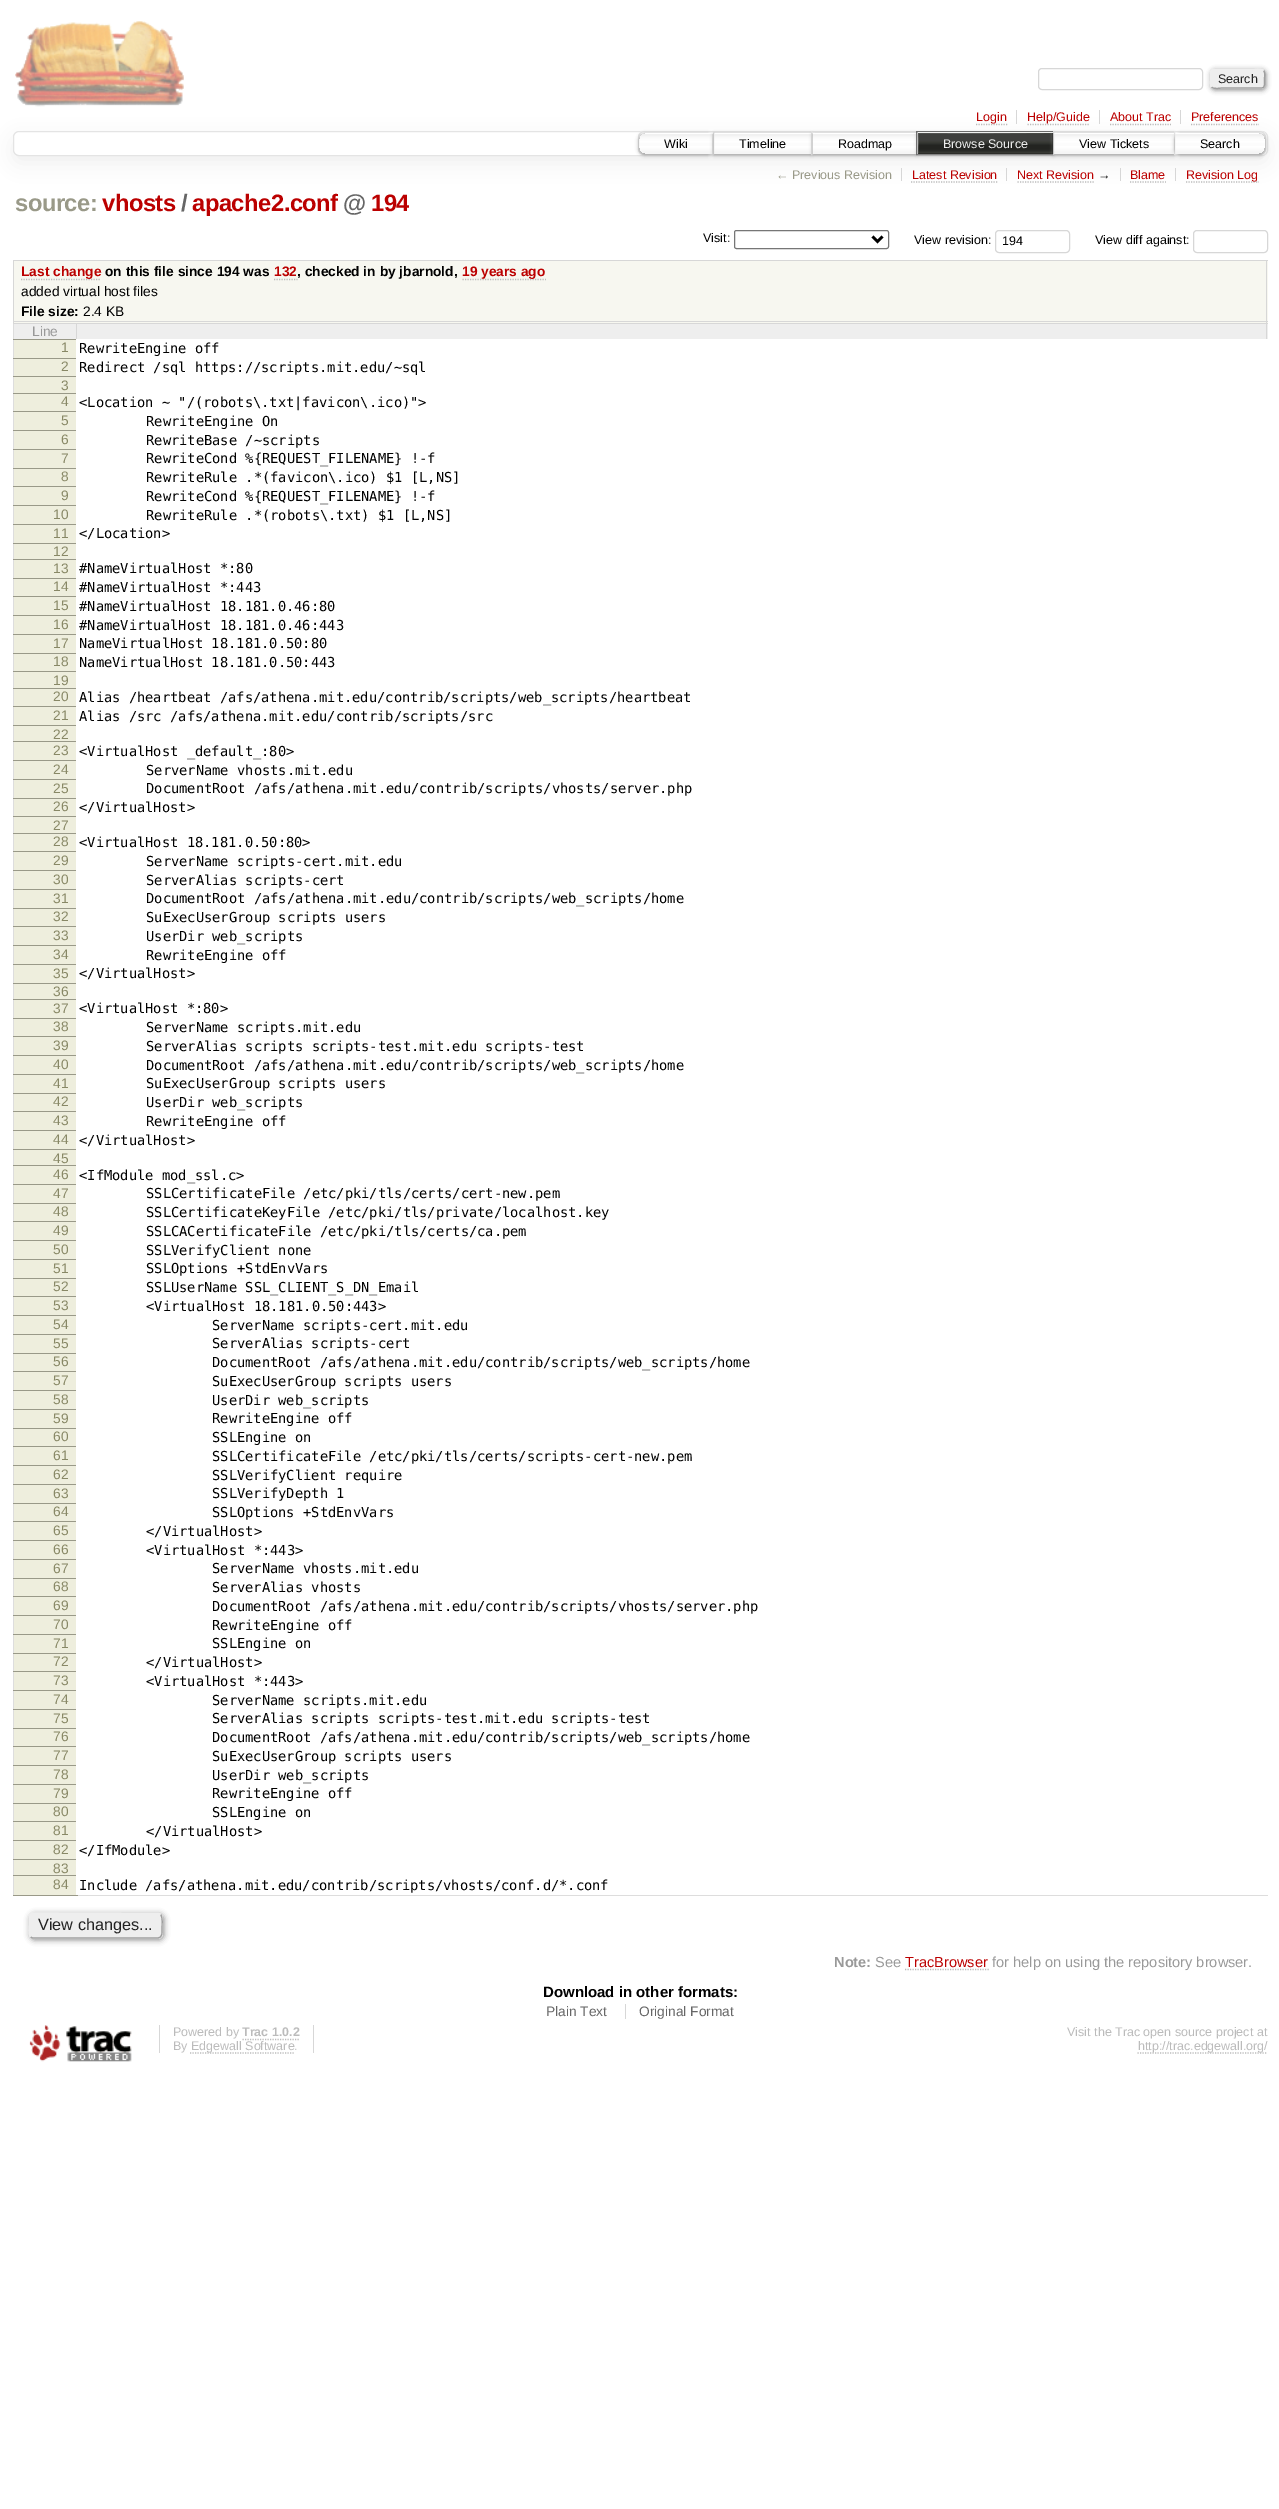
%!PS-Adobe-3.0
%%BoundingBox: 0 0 1279 2509
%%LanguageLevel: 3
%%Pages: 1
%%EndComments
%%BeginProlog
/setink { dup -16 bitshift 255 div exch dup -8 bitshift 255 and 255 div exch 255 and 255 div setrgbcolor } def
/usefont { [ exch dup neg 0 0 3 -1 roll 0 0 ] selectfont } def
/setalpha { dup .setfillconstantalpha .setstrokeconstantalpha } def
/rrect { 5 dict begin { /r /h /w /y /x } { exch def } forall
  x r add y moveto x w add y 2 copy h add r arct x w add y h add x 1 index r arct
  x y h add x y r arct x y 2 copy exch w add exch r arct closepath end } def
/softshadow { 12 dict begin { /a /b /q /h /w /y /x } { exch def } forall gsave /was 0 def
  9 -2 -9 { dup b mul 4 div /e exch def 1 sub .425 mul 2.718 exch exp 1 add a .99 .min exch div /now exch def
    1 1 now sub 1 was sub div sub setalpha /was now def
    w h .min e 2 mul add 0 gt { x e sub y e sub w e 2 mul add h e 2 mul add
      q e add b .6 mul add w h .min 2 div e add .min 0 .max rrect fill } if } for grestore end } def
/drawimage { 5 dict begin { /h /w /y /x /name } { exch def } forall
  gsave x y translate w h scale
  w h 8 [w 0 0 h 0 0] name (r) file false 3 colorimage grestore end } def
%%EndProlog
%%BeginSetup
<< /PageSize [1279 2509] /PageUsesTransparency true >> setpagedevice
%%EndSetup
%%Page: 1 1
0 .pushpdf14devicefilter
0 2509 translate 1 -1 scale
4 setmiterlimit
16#FFFFFF setink
0 0 1279 2509 rectfill
(img1.raw) 15 21 169 86 drawimage
16#D7D7D7 setink
1038.5 68.5 164 21 3.5 rrect stroke
16#888888 setink
1211 70 55 20 4 2.5 1 softshadow
16#EEEEEE setink
1210 69 55 20 4 rrect fill
16#9F9F9F setink
1.2 setlinewidth
1263.5 70.5 moveto 1265.5 72.5 1264.5 76.5 1264.5 79 curveto 1264.5 89.5 1265 88 1253.5 88 curveto 1221.5 88 lineto 1221 88 1213.5 89.5 1211.5 87 curveto stroke
16#EEEEEE setink
1211.5 87 moveto 1209.5 85 1210.5 81 1210.5 79 curveto 1210.5 68 1210 69.5 1221.5 69.5 curveto 1253.5 69.5 lineto 1254 69.5 1261.5 68 1263.5 70.5 curveto stroke
/LiberationSans-Regular 12.5 usefont
16#222222 setink
1218 83 moveto (Search) show
gsave
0 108 moveto 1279 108 lineto 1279 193 lineto 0 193 lineto closepath 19 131 moveto 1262 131 lineto 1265.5 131 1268 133.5 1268 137 curveto 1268 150 lineto 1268 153.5 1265.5 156 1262 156 curveto 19 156 lineto 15.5 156 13 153.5 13 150 curveto 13 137 lineto 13 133.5 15.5 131 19 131 curveto closepath eoclip newpath
16#EEEEEE setink
13 138 1255 25 6 9.5 1 softshadow
grestore
16#D7D7D7 setink
1016 110 1 14 rectfill
16#BBBBBB setink
[1.25 1.25] 0 setdash
976 124.5 moveto 1007.5 124.5 lineto stroke
16#BB0000 setink
976 121 moveto (Login) show
16#D7D7D7 setink
1099 110 1 14 rectfill
16#BBBBBB setink
1027.5 124.5 moveto 1090 124.5 lineto stroke
16#BB0000 setink
1027 121 moveto (Help/Guide) show
16#D7D7D7 setink
1180 110 1 14 rectfill
16#BB0000 setink
1110 121 moveto (About Trac) show
16#BBBBBB setink
1110 124.5 moveto 1171 124.5 lineto stroke
16#BB0000 setink
1191 121 moveto (Preferences) show
16#BBBBBB setink
1191 124.5 moveto 1259 124.5 lineto stroke
16#E4E4E4 setink
1 setlinewidth
[] 0 setdash
13.5 131.5 1254 24 5.5 rrect stroke
16#FFFFFF setink
644 131 moveto 714 131 lineto 714 155 lineto 644 155 lineto 640.5 155 638 152.5 638 149 curveto 638 137 lineto 638 133.5 640.5 131 644 131 curveto closepath fill
(img2.raw) 638 134 75 21 drawimage
16#E4E4E4 setink
644 131.5 moveto 713.5 131.5 lineto 713.5 154.5 lineto 644 154.5 lineto 641 154.5 638.5 152 638.5 149 curveto 638.5 137 lineto 638.5 134 641 131.5 644 131.5 curveto closepath stroke
gsave
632 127 moveto 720 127 lineto 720 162 lineto 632 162 lineto closepath 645 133 moveto 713 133 lineto 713 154 lineto 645 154 lineto 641.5 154 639 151.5 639 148 curveto 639 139 lineto 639 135.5 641.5 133 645 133 curveto closepath eoclip newpath
16#999999 setink
639 134 74 21 6 2 1 softshadow
grestore
16#000000 setink
664 148 moveto (Wiki) show
16#FFFFFF setink
714 134 3 20 rectfill
(img3.raw) 712 134 99 20 drawimage
16#E4E4E4 setink
713.5 131.5 99 23 rectstroke
gsave
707 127 moveto 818 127 lineto 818 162 lineto 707 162 lineto closepath 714 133 moveto 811 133 lineto 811 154 lineto 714 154 lineto closepath eoclip newpath
16#999999 setink
714 134 97 21 0 2 1 softshadow
grestore
16#000000 setink
739 148 moveto (Timeline) show
16#FFFFFF setink
812 132 3 22 rectfill
(img4.raw) 812 134 104 20 drawimage
16#E4E4E4 setink
811.5 131.5 106 23 rectstroke
gsave
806 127 moveto 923 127 lineto 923 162 lineto 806 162 lineto closepath 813 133 moveto 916 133 lineto 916 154 lineto 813 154 lineto closepath eoclip newpath
16#999999 setink
813 134 103 21 0 2 1 softshadow
grestore
16#000000 setink
838 148 moveto (Roadmap) show
16#FFFFFF setink
917 132 3 22 rectfill
(img5.raw) 917 134 1 20 drawimage
16#666666 setink
916.5 131.5 137 23 rectstroke
16#999999 setink
918 134 135 21 0 2 1 softshadow
16#000000 setink
918 133 135 21 rectfill
(img6.raw) 918 132 135 22 drawimage
16#EEEEEE setink
943 148 moveto (Browse Source) show
16#FFFFFF setink
1054 132 3 22 rectfill
(img7.raw) 1052 134 122 20 drawimage
16#E4E4E4 setink
1053.5 131.5 121 23 rectstroke
gsave
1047 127 moveto 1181 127 lineto 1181 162 lineto 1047 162 lineto closepath 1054 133 moveto 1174 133 lineto 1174 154 lineto 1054 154 lineto closepath eoclip newpath
16#999999 setink
1054 134 120 21 0 2 1 softshadow
grestore
16#000000 setink
1079 148 moveto (View Tickets) show
16#FFFFFF setink
1174 131 moveto 1260 131 lineto 1263.5 131 1266 133.5 1266 137 curveto 1266 149 lineto 1266 152.5 1263.5 155 1260 155 curveto 1174 155 lineto closepath fill
(img8.raw) 1175 134 91 21 drawimage
16#E4E4E4 setink
1174.5 131.5 moveto 1260 131.5 lineto 1263 131.5 1265.5 134 1265.5 137 curveto 1265.5 149 lineto 1265.5 152 1263 154.5 1260 154.5 curveto 1174.5 154.5 lineto closepath stroke
gsave
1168 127 moveto 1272 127 lineto 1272 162 lineto 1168 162 lineto closepath 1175 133 moveto 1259 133 lineto 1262.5 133 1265 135.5 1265 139 curveto 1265 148 lineto 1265 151.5 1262.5 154 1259 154 curveto 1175 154 lineto closepath eoclip newpath
16#999999 setink
1175 134 90 21 6 2 1 softshadow
grestore
16#000000 setink
1200 148 moveto (Search) show
16#D7D7D7 setink
901 168 1 13 rectfill
16#999988 setink
776 179 moveto (← Previous Revision) show
16#D7D7D7 setink
1006 168 1 13 rectfill
16#BB0000 setink
912 179 moveto (Latest Revision) show
16#BBBBBB setink
1.2 setlinewidth
[1.25 1.25] 0 setdash
911 182 moveto 997.5 182 lineto stroke
16#D7D7D7 setink
1120 168 1 13 rectfill
16#BB0000 setink
1017 179 moveto (Next Revision) show
16#BBBBBB setink
1017.5 182 moveto 1095 182 lineto stroke
16#000000 setink
1098 179 moveto (→) show
16#D7D7D7 setink
1175 168 1 13 rectfill
16#BB0000 setink
1130 179 moveto (Blame) show
16#BBBBBB setink
1130 182 moveto 1166 182 lineto stroke
1186 182 moveto 1259 182 lineto stroke
16#BB0000 setink
1186 179 moveto (Revision Log) show
/LiberationSans-Bold 23.75 usefont
16#999988 setink
15 211 moveto -0.5 0 (source:) ashow
16#BB0000 setink
102 211 moveto -0.5 0 (vhosts) ashow
16#666666 setink
181 211 moveto -0.5 0 (/) ashow
16#BB0000 setink
192 211 moveto -0.5 0 (apache2.conf) ashow
16#666666 setink
343 211 moveto -0.5 0 (@) ashow
16#BB0000 setink
371 211 moveto -0.5 0 (194) ashow
/LiberationSans-Regular 12.5 usefont
16#000000 setink
703 242 moveto (Visit:) show
16#767676 setink
1 setlinewidth
[] 0 setdash
734.5 230.5 154 18 2 rrect stroke
16#000000 setink
2.5 setlinewidth
872.5 236.5 moveto 877.5 241.5 lineto 882.5 236.5 lineto stroke
914 244 moveto (View revision:) show
16#D7D7D7 setink
1 setlinewidth
995.5 230.5 74 22 3.5 rrect stroke
16#000000 setink
1002 245 moveto (194) show
1095 244 moveto (View diff against:) show
16#D7D7D7 setink
1193.5 230.5 74 22 3.5 rrect stroke
[
    [14 261 1254 62 16#F7F7F0]
    [13 260 1255 1 16#D7D7D7]
    [1266 260 1 63 16#D7D7D7]
    [13 321 1255 1 16#D7D7D7]
    [13 260 1 63 16#D7D7D7]
] { aload pop setink rectfill } forall
16#BBBBBB setink
1.2 setlinewidth
[1.25 1.25] 0 setdash
21 279.5 moveto 101 279.5 lineto stroke
/LiberationSans-Bold 13.75 usefont
16#BB0000 setink
21 276 moveto (Last change) show
16#000000 setink
105 276 moveto (on this file since 194 was) show
16#BB0000 setink
274 276 moveto (132) show
16#BBBBBB setink
274 279.5 moveto 297.5 279.5 lineto stroke
16#000000 setink
297 276 moveto (, checked in by jbarnold,) show
16#BBBBBB setink
462.5 279.5 moveto 546 279.5 lineto stroke
16#BB0000 setink
462 276 moveto (19 years ago) show
/LiberationSans-Regular 13.75 usefont
16#000000 setink
21 296 moveto (added virtual host files) show
/LiberationSans-Bold 13.75 usefont
21 316 moveto (File size:) show
/LiberationSans-Regular 13.75 usefont
83 316 moveto (2.4 KB) show
[
    [78 1895 1190 1 16#DDDDDD]
    [13 323 1 1573 16#DDDDDD]
    [77 324 1191 15 16#EEEEEE]
    [13 323 1255 1 16#D7D7D7]
    [1266 323 1 17 16#D7D7D7]
    [14 324 62 15 16#EEEEEE]
    [76 323 1 17 16#D7D7D7]
    [13 339 65 1 16#999988]
] { aload pop setink rectfill } forall
16#999999 setink
32 336 moveto (Line) show
16#EEEEDD setink
14 340 62 18 rectfill
16#999988 setink
13 358 65 1 rectfill
16#888866 setink
61 352 moveto (1) show
16#FFFFFF setink
76 339 1191 20 rectfill
/DejaVuSansMono-Regular 13.75 usefont
16#000000 setink
79 353 moveto (RewriteEngine off) show
16#EEEEDD setink
14 359 62 34 rectfill
16#999988 setink
13 376 65 1 rectfill
/LiberationSans-Regular 13.75 usefont
16#888866 setink
61 371 moveto (2) show
16#FFFFFF setink
76 376 2 1 rectfill
/DejaVuSansMono-Regular 13.75 usefont
16#000000 setink
79 372 moveto (Redirect /sql https://scripts.mit.edu/~sql) show
16#999988 setink
13 393 65 1 rectfill
/LiberationSans-Regular 13.75 usefont
16#888866 setink
61 390 moveto (3) show
[
    [76 393 2 1 16#FFFFFF]
    [14 394 62 36 16#EEEEDD]
    [13 411 65 1 16#999988]
] { aload pop setink rectfill } forall
16#888866 setink
61 406 moveto (4) show
16#FFFFFF setink
76 411 2 1 rectfill
/DejaVuSansMono-Regular 13.75 usefont
16#000000 setink
79 407 moveto (<Location ~ "/\(robots\\.txt|favicon\\.ico\)">) show
16#999988 setink
13 430 65 1 rectfill
/LiberationSans-Regular 13.75 usefont
16#888866 setink
61 425 moveto (5) show
16#FFFFFF setink
76 430 2 1 rectfill
/DejaVuSansMono-Regular 13.75 usefont
16#000000 setink
146 426 moveto (RewriteEngine On) show
16#EEEEDD setink
14 431 62 18 rectfill
16#999988 setink
13 449 65 1 rectfill
/LiberationSans-Regular 13.75 usefont
16#888866 setink
61 444 moveto (6) show
16#FFFFFF setink
76 449 2 1 rectfill
/DejaVuSansMono-Regular 13.75 usefont
16#000000 setink
146 445 moveto (RewriteBase /~scripts) show
16#EEEEDD setink
14 450 62 18 rectfill
16#999988 setink
13 468 65 1 rectfill
/LiberationSans-Regular 13.75 usefont
16#888866 setink
61 463 moveto (7) show
16#FFFFFF setink
76 468 2 1 rectfill
/DejaVuSansMono-Regular 13.75 usefont
16#000000 setink
146 463 moveto (RewriteCond %{REQUEST_FILENAME} !-f) show
16#EEEEDD setink
14 469 62 36 rectfill
16#999988 setink
13 486 65 1 rectfill
/LiberationSans-Regular 13.75 usefont
16#888866 setink
61 481 moveto (8) show
16#FFFFFF setink
76 486 2 1 rectfill
/DejaVuSansMono-Regular 13.75 usefont
16#000000 setink
146 482 moveto (RewriteRule .*\(favicon\\.ico\) $1 [L,NS]) show
16#999988 setink
13 505 65 1 rectfill
/LiberationSans-Regular 13.75 usefont
16#888866 setink
61 500 moveto (9) show
16#FFFFFF setink
76 505 2 1 rectfill
/DejaVuSansMono-Regular 13.75 usefont
16#000000 setink
146 501 moveto (RewriteCond %{REQUEST_FILENAME} !-f) show
16#EEEEDD setink
14 506 62 18 rectfill
16#999988 setink
13 524 65 1 rectfill
/LiberationSans-Regular 13.75 usefont
16#888866 setink
53 519 moveto (10) show
16#FFFFFF setink
76 524 2 1 rectfill
/DejaVuSansMono-Regular 13.75 usefont
16#000000 setink
146 520 moveto (RewriteRule .*\(robots\\.txt\) $1 [L,NS]) show
16#EEEEDD setink
14 525 62 18 rectfill
16#999988 setink
13 543 65 1 rectfill
/LiberationSans-Regular 13.75 usefont
16#888866 setink
53 538 moveto (11) show
16#FFFFFF setink
76 543 2 1 rectfill
/DejaVuSansMono-Regular 13.75 usefont
16#000000 setink
79 538 moveto (</Location>) show
16#EEEEDD setink
14 544 62 15 rectfill
16#999988 setink
13 559 65 1 rectfill
/LiberationSans-Regular 13.75 usefont
16#888866 setink
53 556 moveto (12) show
[
    [76 559 2 1 16#FFFFFF]
    [14 560 62 18 16#EEEEDD]
    [13 578 65 1 16#999988]
] { aload pop setink rectfill } forall
16#888866 setink
53 573 moveto (13) show
16#FFFFFF setink
76 578 2 1 rectfill
/DejaVuSansMono-Regular 13.75 usefont
16#000000 setink
79 573 moveto (#NameVirtualHost *:80) show
16#EEEEDD setink
14 579 62 36 rectfill
16#999988 setink
13 596 65 1 rectfill
/LiberationSans-Regular 13.75 usefont
16#888866 setink
53 591 moveto (14) show
16#FFFFFF setink
76 596 2 1 rectfill
/DejaVuSansMono-Regular 13.75 usefont
16#000000 setink
79 592 moveto (#NameVirtualHost *:443) show
16#999988 setink
13 615 65 1 rectfill
/LiberationSans-Regular 13.75 usefont
16#888866 setink
53 610 moveto (15) show
16#FFFFFF setink
76 615 2 1 rectfill
/DejaVuSansMono-Regular 13.75 usefont
16#000000 setink
79 611 moveto (#NameVirtualHost 18.181.0.46:80) show
16#EEEEDD setink
14 616 62 18 rectfill
16#999988 setink
13 634 65 1 rectfill
/LiberationSans-Regular 13.75 usefont
16#888866 setink
53 629 moveto (16) show
16#FFFFFF setink
76 634 2 1 rectfill
/DejaVuSansMono-Regular 13.75 usefont
16#000000 setink
79 630 moveto (#NameVirtualHost 18.181.0.46:443) show
16#EEEEDD setink
14 635 62 18 rectfill
16#999988 setink
13 653 65 1 rectfill
/LiberationSans-Regular 13.75 usefont
16#888866 setink
53 648 moveto (17) show
16#FFFFFF setink
76 653 2 1 rectfill
/DejaVuSansMono-Regular 13.75 usefont
16#000000 setink
79 648 moveto (NameVirtualHost 18.181.0.50:80) show
16#EEEEDD setink
14 654 62 34 rectfill
16#999988 setink
13 671 65 1 rectfill
/LiberationSans-Regular 13.75 usefont
16#888866 setink
53 666 moveto (18) show
16#FFFFFF setink
76 671 2 1 rectfill
/DejaVuSansMono-Regular 13.75 usefont
16#000000 setink
79 667 moveto (NameVirtualHost 18.181.0.50:443) show
16#999988 setink
13 688 65 1 rectfill
/LiberationSans-Regular 13.75 usefont
16#888866 setink
53 685 moveto (19) show
[
    [76 688 2 1 16#FFFFFF]
    [14 689 62 36 16#EEEEDD]
    [13 706 65 1 16#999988]
] { aload pop setink rectfill } forall
16#888866 setink
53 701 moveto (20) show
16#FFFFFF setink
76 706 2 1 rectfill
/DejaVuSansMono-Regular 13.75 usefont
16#000000 setink
79 702 moveto (Alias /heartbeat /afs/athena.mit.edu/contrib/scripts/web_scripts/heartbeat) show
16#999988 setink
13 725 65 1 rectfill
/LiberationSans-Regular 13.75 usefont
16#888866 setink
53 720 moveto (21) show
16#FFFFFF setink
76 725 2 1 rectfill
/DejaVuSansMono-Regular 13.75 usefont
16#000000 setink
79 721 moveto (Alias /src /afs/athena.mit.edu/contrib/scripts/src) show
16#EEEEDD setink
14 726 62 34 rectfill
16#999988 setink
13 741 65 1 rectfill
/LiberationSans-Regular 13.75 usefont
16#888866 setink
53 739 moveto (22) show
16#FFFFFF setink
76 741 2 1 rectfill
16#999988 setink
13 760 65 1 rectfill
16#888866 setink
53 755 moveto (23) show
16#FFFFFF setink
76 760 2 1 rectfill
/DejaVuSansMono-Regular 13.75 usefont
16#000000 setink
79 756 moveto (<VirtualHost _default_:80>) show
16#EEEEDD setink
14 761 62 18 rectfill
16#999988 setink
13 779 65 1 rectfill
/LiberationSans-Regular 13.75 usefont
16#888866 setink
53 774 moveto (24) show
16#FFFFFF setink
76 779 2 1 rectfill
/DejaVuSansMono-Regular 13.75 usefont
16#000000 setink
146 775 moveto (ServerName vhosts.mit.edu) show
16#EEEEDD setink
14 780 62 18 rectfill
16#999988 setink
13 798 65 1 rectfill
/LiberationSans-Regular 13.75 usefont
16#888866 setink
53 793 moveto (25) show
16#FFFFFF setink
76 798 2 1 rectfill
/DejaVuSansMono-Regular 13.75 usefont
16#000000 setink
146 793 moveto (DocumentRoot /afs/athena.mit.edu/contrib/scripts/vhosts/server.php) show
16#EEEEDD setink
14 799 62 34 rectfill
16#999988 setink
13 816 65 1 rectfill
/LiberationSans-Regular 13.75 usefont
16#888866 setink
53 811 moveto (26) show
16#FFFFFF setink
76 816 2 1 rectfill
/DejaVuSansMono-Regular 13.75 usefont
16#000000 setink
79 812 moveto (</VirtualHost>) show
16#999988 setink
13 833 65 1 rectfill
/LiberationSans-Regular 13.75 usefont
16#888866 setink
53 830 moveto (27) show
[
    [76 833 2 1 16#FFFFFF]
    [14 834 62 36 16#EEEEDD]
    [13 851 65 1 16#999988]
] { aload pop setink rectfill } forall
16#888866 setink
53 846 moveto (28) show
16#FFFFFF setink
76 851 2 1 rectfill
/DejaVuSansMono-Regular 13.75 usefont
16#000000 setink
79 847 moveto (<VirtualHost 18.181.0.50:80>) show
16#999988 setink
13 870 65 1 rectfill
/LiberationSans-Regular 13.75 usefont
16#888866 setink
53 865 moveto (29) show
16#FFFFFF setink
76 870 2 1 rectfill
/DejaVuSansMono-Regular 13.75 usefont
16#000000 setink
146 866 moveto (ServerName scripts-cert.mit.edu) show
16#EEEEDD setink
14 871 62 18 rectfill
16#999988 setink
13 889 65 1 rectfill
/LiberationSans-Regular 13.75 usefont
16#888866 setink
53 884 moveto (30) show
16#FFFFFF setink
76 889 2 1 rectfill
/DejaVuSansMono-Regular 13.75 usefont
16#000000 setink
146 885 moveto (ServerAlias scripts-cert) show
16#EEEEDD setink
14 890 62 18 rectfill
16#999988 setink
13 908 65 1 rectfill
/LiberationSans-Regular 13.75 usefont
16#888866 setink
53 903 moveto (31) show
16#FFFFFF setink
76 908 2 1 rectfill
/DejaVuSansMono-Regular 13.75 usefont
16#000000 setink
146 903 moveto (DocumentRoot /afs/athena.mit.edu/contrib/scripts/web_scripts/home) show
16#EEEEDD setink
14 909 62 36 rectfill
16#999988 setink
13 926 65 1 rectfill
/LiberationSans-Regular 13.75 usefont
16#888866 setink
53 921 moveto (32) show
16#FFFFFF setink
76 926 2 1 rectfill
/DejaVuSansMono-Regular 13.75 usefont
16#000000 setink
146 922 moveto (SuExecUserGroup scripts users) show
16#999988 setink
13 945 65 1 rectfill
/LiberationSans-Regular 13.75 usefont
16#888866 setink
53 940 moveto (33) show
16#FFFFFF setink
76 945 2 1 rectfill
/DejaVuSansMono-Regular 13.75 usefont
16#000000 setink
146 941 moveto (UserDir web_scripts) show
16#EEEEDD setink
14 946 62 18 rectfill
16#999988 setink
13 964 65 1 rectfill
/LiberationSans-Regular 13.75 usefont
16#888866 setink
53 959 moveto (34) show
16#FFFFFF setink
76 964 2 1 rectfill
/DejaVuSansMono-Regular 13.75 usefont
16#000000 setink
146 960 moveto (RewriteEngine off) show
16#EEEEDD setink
14 965 62 18 rectfill
16#999988 setink
13 983 65 1 rectfill
/LiberationSans-Regular 13.75 usefont
16#888866 setink
53 978 moveto (35) show
16#FFFFFF setink
76 983 2 1 rectfill
/DejaVuSansMono-Regular 13.75 usefont
16#000000 setink
79 978 moveto (</VirtualHost>) show
16#EEEEDD setink
14 984 62 15 rectfill
16#999988 setink
13 999 65 1 rectfill
/LiberationSans-Regular 13.75 usefont
16#888866 setink
53 996 moveto (36) show
[
    [76 999 2 1 16#FFFFFF]
    [14 1000 62 18 16#EEEEDD]
    [13 1018 65 1 16#999988]
] { aload pop setink rectfill } forall
16#888866 setink
53 1013 moveto (37) show
16#FFFFFF setink
76 1018 2 1 rectfill
/DejaVuSansMono-Regular 13.75 usefont
16#000000 setink
79 1013 moveto (<VirtualHost *:80>) show
16#EEEEDD setink
14 1019 62 36 rectfill
16#999988 setink
13 1036 65 1 rectfill
/LiberationSans-Regular 13.75 usefont
16#888866 setink
53 1031 moveto (38) show
16#FFFFFF setink
76 1036 2 1 rectfill
/DejaVuSansMono-Regular 13.75 usefont
16#000000 setink
146 1032 moveto (ServerName scripts.mit.edu) show
16#999988 setink
13 1055 65 1 rectfill
/LiberationSans-Regular 13.75 usefont
16#888866 setink
53 1050 moveto (39) show
16#FFFFFF setink
76 1055 2 1 rectfill
/DejaVuSansMono-Regular 13.75 usefont
16#000000 setink
146 1051 moveto (ServerAlias scripts scripts-test.mit.edu scripts-test) show
16#EEEEDD setink
14 1056 62 18 rectfill
16#999988 setink
13 1074 65 1 rectfill
/LiberationSans-Regular 13.75 usefont
16#888866 setink
53 1069 moveto (40) show
16#FFFFFF setink
76 1074 2 1 rectfill
/DejaVuSansMono-Regular 13.75 usefont
16#000000 setink
146 1070 moveto (DocumentRoot /afs/athena.mit.edu/contrib/scripts/web_scripts/home) show
16#EEEEDD setink
14 1075 62 18 rectfill
16#999988 setink
13 1093 65 1 rectfill
/LiberationSans-Regular 13.75 usefont
16#888866 setink
53 1088 moveto (41) show
16#FFFFFF setink
76 1093 2 1 rectfill
/DejaVuSansMono-Regular 13.75 usefont
16#000000 setink
146 1088 moveto (SuExecUserGroup scripts users) show
16#EEEEDD setink
14 1094 62 36 rectfill
16#999988 setink
13 1111 65 1 rectfill
/LiberationSans-Regular 13.75 usefont
16#888866 setink
53 1106 moveto (42) show
16#FFFFFF setink
76 1111 2 1 rectfill
/DejaVuSansMono-Regular 13.75 usefont
16#000000 setink
146 1107 moveto (UserDir web_scripts) show
16#999988 setink
13 1130 65 1 rectfill
/LiberationSans-Regular 13.75 usefont
16#888866 setink
53 1125 moveto (43) show
16#FFFFFF setink
76 1130 2 1 rectfill
/DejaVuSansMono-Regular 13.75 usefont
16#000000 setink
146 1126 moveto (RewriteEngine off) show
16#EEEEDD setink
14 1131 62 18 rectfill
16#999988 setink
13 1149 65 1 rectfill
/LiberationSans-Regular 13.75 usefont
16#888866 setink
53 1144 moveto (44) show
16#FFFFFF setink
76 1149 2 1 rectfill
/DejaVuSansMono-Regular 13.75 usefont
16#000000 setink
79 1145 moveto (</VirtualHost>) show
16#EEEEDD setink
14 1150 62 15 rectfill
16#999988 setink
13 1165 65 1 rectfill
/LiberationSans-Regular 13.75 usefont
16#888866 setink
53 1163 moveto (45) show
[
    [76 1165 2 1 16#FFFFFF]
    [14 1166 62 18 16#EEEEDD]
    [13 1184 65 1 16#999988]
] { aload pop setink rectfill } forall
16#888866 setink
53 1179 moveto (46) show
16#FFFFFF setink
76 1184 2 1 rectfill
/DejaVuSansMono-Regular 13.75 usefont
16#000000 setink
79 1180 moveto (<IfModule mod_ssl.c>) show
16#EEEEDD setink
14 1185 62 18 rectfill
16#999988 setink
13 1203 65 1 rectfill
/LiberationSans-Regular 13.75 usefont
16#888866 setink
53 1198 moveto (47) show
16#FFFFFF setink
76 1203 2 1 rectfill
/DejaVuSansMono-Regular 13.75 usefont
16#000000 setink
146 1198 moveto (SSLCertificateFile /etc/pki/tls/certs/cert-new.pem) show
16#EEEEDD setink
14 1204 62 36 rectfill
16#999988 setink
13 1221 65 1 rectfill
/LiberationSans-Regular 13.75 usefont
16#888866 setink
53 1216 moveto (48) show
16#FFFFFF setink
76 1221 2 1 rectfill
/DejaVuSansMono-Regular 13.75 usefont
16#000000 setink
146 1217 moveto (SSLCertificateKeyFile /etc/pki/tls/private/localhost.key) show
16#999988 setink
13 1240 65 1 rectfill
/LiberationSans-Regular 13.75 usefont
16#888866 setink
53 1235 moveto (49) show
16#FFFFFF setink
76 1240 2 1 rectfill
/DejaVuSansMono-Regular 13.75 usefont
16#000000 setink
146 1236 moveto (SSLCACertificateFile /etc/pki/tls/certs/ca.pem) show
16#EEEEDD setink
14 1241 62 18 rectfill
16#999988 setink
13 1259 65 1 rectfill
/LiberationSans-Regular 13.75 usefont
16#888866 setink
53 1254 moveto (50) show
16#FFFFFF setink
76 1259 2 1 rectfill
/DejaVuSansMono-Regular 13.75 usefont
16#000000 setink
146 1255 moveto (SSLVerifyClient none) show
16#EEEEDD setink
14 1260 62 18 rectfill
16#999988 setink
13 1278 65 1 rectfill
/LiberationSans-Regular 13.75 usefont
16#888866 setink
53 1273 moveto (51) show
16#FFFFFF setink
76 1278 2 1 rectfill
/DejaVuSansMono-Regular 13.75 usefont
16#000000 setink
146 1273 moveto (SSLOptions +StdEnvVars) show
16#EEEEDD setink
14 1279 62 36 rectfill
16#999988 setink
13 1296 65 1 rectfill
/LiberationSans-Regular 13.75 usefont
16#888866 setink
53 1291 moveto (52) show
16#FFFFFF setink
76 1296 2 1 rectfill
/DejaVuSansMono-Regular 13.75 usefont
16#000000 setink
146 1292 moveto (SSLUserName SSL_CLIENT_S_DN_Email) show
16#999988 setink
13 1315 65 1 rectfill
/LiberationSans-Regular 13.75 usefont
16#888866 setink
53 1310 moveto (53) show
16#FFFFFF setink
76 1315 2 1 rectfill
/DejaVuSansMono-Regular 13.75 usefont
16#000000 setink
146 1311 moveto (<VirtualHost 18.181.0.50:443>) show
16#EEEEDD setink
14 1316 62 18 rectfill
16#999988 setink
13 1334 65 1 rectfill
/LiberationSans-Regular 13.75 usefont
16#888866 setink
53 1329 moveto (54) show
16#FFFFFF setink
76 1334 2 1 rectfill
/DejaVuSansMono-Regular 13.75 usefont
16#000000 setink
212 1330 moveto (ServerName scripts-cert.mit.edu) show
16#EEEEDD setink
14 1335 62 18 rectfill
16#999988 setink
13 1353 65 1 rectfill
/LiberationSans-Regular 13.75 usefont
16#888866 setink
53 1348 moveto (55) show
16#FFFFFF setink
76 1353 2 1 rectfill
/DejaVuSansMono-Regular 13.75 usefont
16#000000 setink
212 1348 moveto (ServerAlias scripts-cert) show
16#EEEEDD setink
14 1354 62 36 rectfill
16#999988 setink
13 1371 65 1 rectfill
/LiberationSans-Regular 13.75 usefont
16#888866 setink
53 1366 moveto (56) show
16#FFFFFF setink
76 1371 2 1 rectfill
/DejaVuSansMono-Regular 13.75 usefont
16#000000 setink
212 1367 moveto (DocumentRoot /afs/athena.mit.edu/contrib/scripts/web_scripts/home) show
16#999988 setink
13 1390 65 1 rectfill
/LiberationSans-Regular 13.75 usefont
16#888866 setink
53 1385 moveto (57) show
16#FFFFFF setink
76 1390 2 1 rectfill
/DejaVuSansMono-Regular 13.75 usefont
16#000000 setink
212 1386 moveto (SuExecUserGroup scripts users) show
16#EEEEDD setink
14 1391 62 18 rectfill
16#999988 setink
13 1409 65 1 rectfill
/LiberationSans-Regular 13.75 usefont
16#888866 setink
53 1404 moveto (58) show
16#FFFFFF setink
76 1409 2 1 rectfill
/DejaVuSansMono-Regular 13.75 usefont
16#000000 setink
212 1405 moveto (UserDir web_scripts) show
16#EEEEDD setink
14 1410 62 18 rectfill
16#999988 setink
13 1428 65 1 rectfill
/LiberationSans-Regular 13.75 usefont
16#888866 setink
53 1423 moveto (59) show
16#FFFFFF setink
76 1428 2 1 rectfill
/DejaVuSansMono-Regular 13.75 usefont
16#000000 setink
212 1423 moveto (RewriteEngine off) show
16#EEEEDD setink
14 1429 62 36 rectfill
16#999988 setink
13 1446 65 1 rectfill
/LiberationSans-Regular 13.75 usefont
16#888866 setink
53 1441 moveto (60) show
16#FFFFFF setink
76 1446 2 1 rectfill
/DejaVuSansMono-Regular 13.75 usefont
16#000000 setink
212 1442 moveto (SSLEngine on) show
16#999988 setink
13 1465 65 1 rectfill
/LiberationSans-Regular 13.75 usefont
16#888866 setink
53 1460 moveto (61) show
16#FFFFFF setink
76 1465 2 1 rectfill
/DejaVuSansMono-Regular 13.75 usefont
16#000000 setink
212 1461 moveto (SSLCertificateFile /etc/pki/tls/certs/scripts-cert-new.pem) show
16#EEEEDD setink
14 1466 62 18 rectfill
16#999988 setink
13 1484 65 1 rectfill
/LiberationSans-Regular 13.75 usefont
16#888866 setink
53 1479 moveto (62) show
16#FFFFFF setink
76 1484 2 1 rectfill
/DejaVuSansMono-Regular 13.75 usefont
16#000000 setink
212 1480 moveto (SSLVerifyClient require) show
16#EEEEDD setink
14 1485 62 18 rectfill
16#999988 setink
13 1503 65 1 rectfill
/LiberationSans-Regular 13.75 usefont
16#888866 setink
53 1498 moveto (63) show
16#FFFFFF setink
76 1503 2 1 rectfill
/DejaVuSansMono-Regular 13.75 usefont
16#000000 setink
212 1498 moveto (SSLVerifyDepth 1) show
16#EEEEDD setink
14 1504 62 36 rectfill
16#999988 setink
13 1521 65 1 rectfill
/LiberationSans-Regular 13.75 usefont
16#888866 setink
53 1516 moveto (64) show
16#FFFFFF setink
76 1521 2 1 rectfill
/DejaVuSansMono-Regular 13.75 usefont
16#000000 setink
212 1517 moveto (SSLOptions +StdEnvVars) show
16#999988 setink
13 1540 65 1 rectfill
/LiberationSans-Regular 13.75 usefont
16#888866 setink
53 1535 moveto (65) show
16#FFFFFF setink
76 1540 2 1 rectfill
/DejaVuSansMono-Regular 13.75 usefont
16#000000 setink
146 1536 moveto (</VirtualHost>) show
16#EEEEDD setink
14 1541 62 18 rectfill
16#999988 setink
13 1559 65 1 rectfill
/LiberationSans-Regular 13.75 usefont
16#888866 setink
53 1554 moveto (66) show
16#FFFFFF setink
76 1559 2 1 rectfill
/DejaVuSansMono-Regular 13.75 usefont
16#000000 setink
146 1555 moveto (<VirtualHost *:443>) show
16#EEEEDD setink
14 1560 62 18 rectfill
16#999988 setink
13 1578 65 1 rectfill
/LiberationSans-Regular 13.75 usefont
16#888866 setink
53 1573 moveto (67) show
16#FFFFFF setink
76 1578 2 1 rectfill
/DejaVuSansMono-Regular 13.75 usefont
16#000000 setink
212 1573 moveto (ServerName vhosts.mit.edu) show
16#EEEEDD setink
14 1579 62 36 rectfill
16#999988 setink
13 1596 65 1 rectfill
/LiberationSans-Regular 13.75 usefont
16#888866 setink
53 1591 moveto (68) show
16#FFFFFF setink
76 1596 2 1 rectfill
/DejaVuSansMono-Regular 13.75 usefont
16#000000 setink
212 1592 moveto (ServerAlias vhosts) show
16#999988 setink
13 1615 65 1 rectfill
/LiberationSans-Regular 13.75 usefont
16#888866 setink
53 1610 moveto (69) show
16#FFFFFF setink
76 1615 2 1 rectfill
/DejaVuSansMono-Regular 13.75 usefont
16#000000 setink
212 1611 moveto (DocumentRoot /afs/athena.mit.edu/contrib/scripts/vhosts/server.php) show
16#EEEEDD setink
14 1616 62 18 rectfill
16#999988 setink
13 1634 65 1 rectfill
/LiberationSans-Regular 13.75 usefont
16#888866 setink
53 1629 moveto (70) show
16#FFFFFF setink
76 1634 2 1 rectfill
/DejaVuSansMono-Regular 13.75 usefont
16#000000 setink
212 1630 moveto (RewriteEngine off) show
16#EEEEDD setink
14 1635 62 18 rectfill
16#999988 setink
13 1653 65 1 rectfill
/LiberationSans-Regular 13.75 usefont
16#888866 setink
53 1648 moveto (71) show
16#FFFFFF setink
76 1653 2 1 rectfill
/DejaVuSansMono-Regular 13.75 usefont
16#000000 setink
212 1648 moveto (SSLEngine on) show
16#EEEEDD setink
14 1654 62 36 rectfill
16#999988 setink
13 1671 65 1 rectfill
/LiberationSans-Regular 13.75 usefont
16#888866 setink
53 1666 moveto (72) show
16#FFFFFF setink
76 1671 2 1 rectfill
/DejaVuSansMono-Regular 13.75 usefont
16#000000 setink
146 1667 moveto (</VirtualHost>) show
16#999988 setink
13 1690 65 1 rectfill
/LiberationSans-Regular 13.75 usefont
16#888866 setink
53 1685 moveto (73) show
16#FFFFFF setink
76 1690 2 1 rectfill
/DejaVuSansMono-Regular 13.75 usefont
16#000000 setink
146 1686 moveto (<VirtualHost *:443>) show
16#EEEEDD setink
14 1691 62 18 rectfill
16#999988 setink
13 1709 65 1 rectfill
/LiberationSans-Regular 13.75 usefont
16#888866 setink
53 1704 moveto (74) show
16#FFFFFF setink
76 1709 2 1 rectfill
/DejaVuSansMono-Regular 13.75 usefont
16#000000 setink
212 1705 moveto (ServerName scripts.mit.edu) show
16#EEEEDD setink
14 1710 62 18 rectfill
16#999988 setink
13 1728 65 1 rectfill
/LiberationSans-Regular 13.75 usefont
16#888866 setink
53 1723 moveto (75) show
16#FFFFFF setink
76 1728 2 1 rectfill
/DejaVuSansMono-Regular 13.75 usefont
16#000000 setink
212 1723 moveto (ServerAlias scripts scripts-test.mit.edu scripts-test) show
16#EEEEDD setink
14 1729 62 36 rectfill
16#999988 setink
13 1746 65 1 rectfill
/LiberationSans-Regular 13.75 usefont
16#888866 setink
53 1741 moveto (76) show
16#FFFFFF setink
76 1746 2 1 rectfill
/DejaVuSansMono-Regular 13.75 usefont
16#000000 setink
212 1742 moveto (DocumentRoot /afs/athena.mit.edu/contrib/scripts/web_scripts/home) show
16#999988 setink
13 1765 65 1 rectfill
/LiberationSans-Regular 13.75 usefont
16#888866 setink
53 1760 moveto (77) show
16#FFFFFF setink
76 1765 2 1 rectfill
/DejaVuSansMono-Regular 13.75 usefont
16#000000 setink
212 1761 moveto (SuExecUserGroup scripts users) show
16#EEEEDD setink
14 1766 62 18 rectfill
16#999988 setink
13 1784 65 1 rectfill
/LiberationSans-Regular 13.75 usefont
16#888866 setink
53 1779 moveto (78) show
16#FFFFFF setink
76 1784 2 1 rectfill
/DejaVuSansMono-Regular 13.75 usefont
16#000000 setink
212 1780 moveto (UserDir web_scripts) show
16#EEEEDD setink
14 1785 62 18 rectfill
16#999988 setink
13 1803 65 1 rectfill
/LiberationSans-Regular 13.75 usefont
16#888866 setink
53 1798 moveto (79) show
16#FFFFFF setink
76 1803 2 1 rectfill
/DejaVuSansMono-Regular 13.75 usefont
16#000000 setink
212 1798 moveto (RewriteEngine off) show
16#EEEEDD setink
14 1804 62 36 rectfill
16#999988 setink
13 1821 65 1 rectfill
/LiberationSans-Regular 13.75 usefont
16#888866 setink
53 1816 moveto (80) show
16#FFFFFF setink
76 1821 2 1 rectfill
/DejaVuSansMono-Regular 13.75 usefont
16#000000 setink
212 1817 moveto (SSLEngine on) show
16#999988 setink
13 1840 65 1 rectfill
/LiberationSans-Regular 13.75 usefont
16#888866 setink
53 1835 moveto (81) show
16#FFFFFF setink
76 1840 2 1 rectfill
/DejaVuSansMono-Regular 13.75 usefont
16#000000 setink
146 1836 moveto (</VirtualHost>) show
16#EEEEDD setink
14 1841 62 18 rectfill
16#999988 setink
13 1859 65 1 rectfill
/LiberationSans-Regular 13.75 usefont
16#888866 setink
53 1854 moveto (82) show
16#FFFFFF setink
76 1859 2 1 rectfill
/DejaVuSansMono-Regular 13.75 usefont
16#000000 setink
79 1855 moveto (</IfModule>) show
16#EEEEDD setink
14 1860 62 15 rectfill
16#999988 setink
13 1875 65 1 rectfill
/LiberationSans-Regular 13.75 usefont
16#888866 setink
53 1873 moveto (83) show
[
    [76 1875 2 1 16#FFFFFF]
    [14 1876 62 19 16#EEEEDD]
    [13 1895 65 1 16#999988]
] { aload pop setink rectfill } forall
16#888866 setink
53 1889 moveto (84) show
/DejaVuSansMono-Regular 13.75 usefont
16#000000 setink
79 1890 moveto (Include /afs/athena.mit.edu/contrib/scripts/vhosts/conf.d/*.conf) show
16#888888 setink
30 1914 134 26 5 3 1 softshadow
16#EEEEEE setink
29 1913 134 26 5 rrect fill
16#9F9F9F setink
[] 0 setdash
160.5 1914.5 moveto 163 1917 162 1925 162 1928.5 curveto 162 1931.5 163 1938 157.5 1938 curveto 32.5 1938 lineto 30.5 1937 lineto stroke
16#EEEEEE setink
30.5 1937 moveto 28 1934.5 29.5 1926 29.5 1923 curveto 29.5 1919.5 28.5 1913 33.5 1913 curveto 159 1913.5 lineto 160.5 1914.5 lineto stroke
/LiberationSans-Regular 16.25 usefont
16#222222 setink
38 1930 moveto (View changes...) show
/LiberationSans-Bold 14.6 usefont
16#999999 setink
834 1967 moveto (Note:) show
/LiberationSans-Regular 14.6 usefont
875 1967 moveto (See) show
16#BB0000 setink
905 1967 moveto (TracBrowser) show
16#BBBBBB setink
[1.25 1.25] 0 setdash
905 1969.5 moveto 989 1969.5 lineto stroke
16#999999 setink
992 1967 moveto (for help on using the repository browser.) show
/LiberationSans-Bold 15 usefont
16#000000 setink
543 1997 moveto (Download in other formats:) show
/LiberationSans-Regular 13.75 usefont
16#666666 setink
546 2016 moveto (Plain Text) show
16#D7D7D7 setink
625 2004 1 15 rectfill
16#666666 setink
639 2016 moveto (Original Format) show
(img9.raw) 29 2025 103 37 drawimage
16#D7D7D7 setink
313 2025 1 28 rectfill
159 2025 1 28 rectfill
/LiberationSans-Regular 12.5 usefont
16#BBBBBB setink
173 2036 moveto (Powered by) show
/LiberationSans-Bold 12.5 usefont
242 2036 moveto (Trac 1.0.2) show
242.5 2039.5 moveto 300 2039.5 lineto stroke
/LiberationSans-Regular 12.5 usefont
173 2050 moveto (By) show
190 2053 moveto 294 2053 lineto stroke
191 2050 moveto (Edgewall Software.) show
1067 2036 moveto (Visit the Trac open source project at) show
1137.5 2053 moveto 1267.5 2053 lineto stroke
1138 2050 moveto (http://trac.edgewall.org/) show
.poppdf14devicefilter showpage
%%EOF
